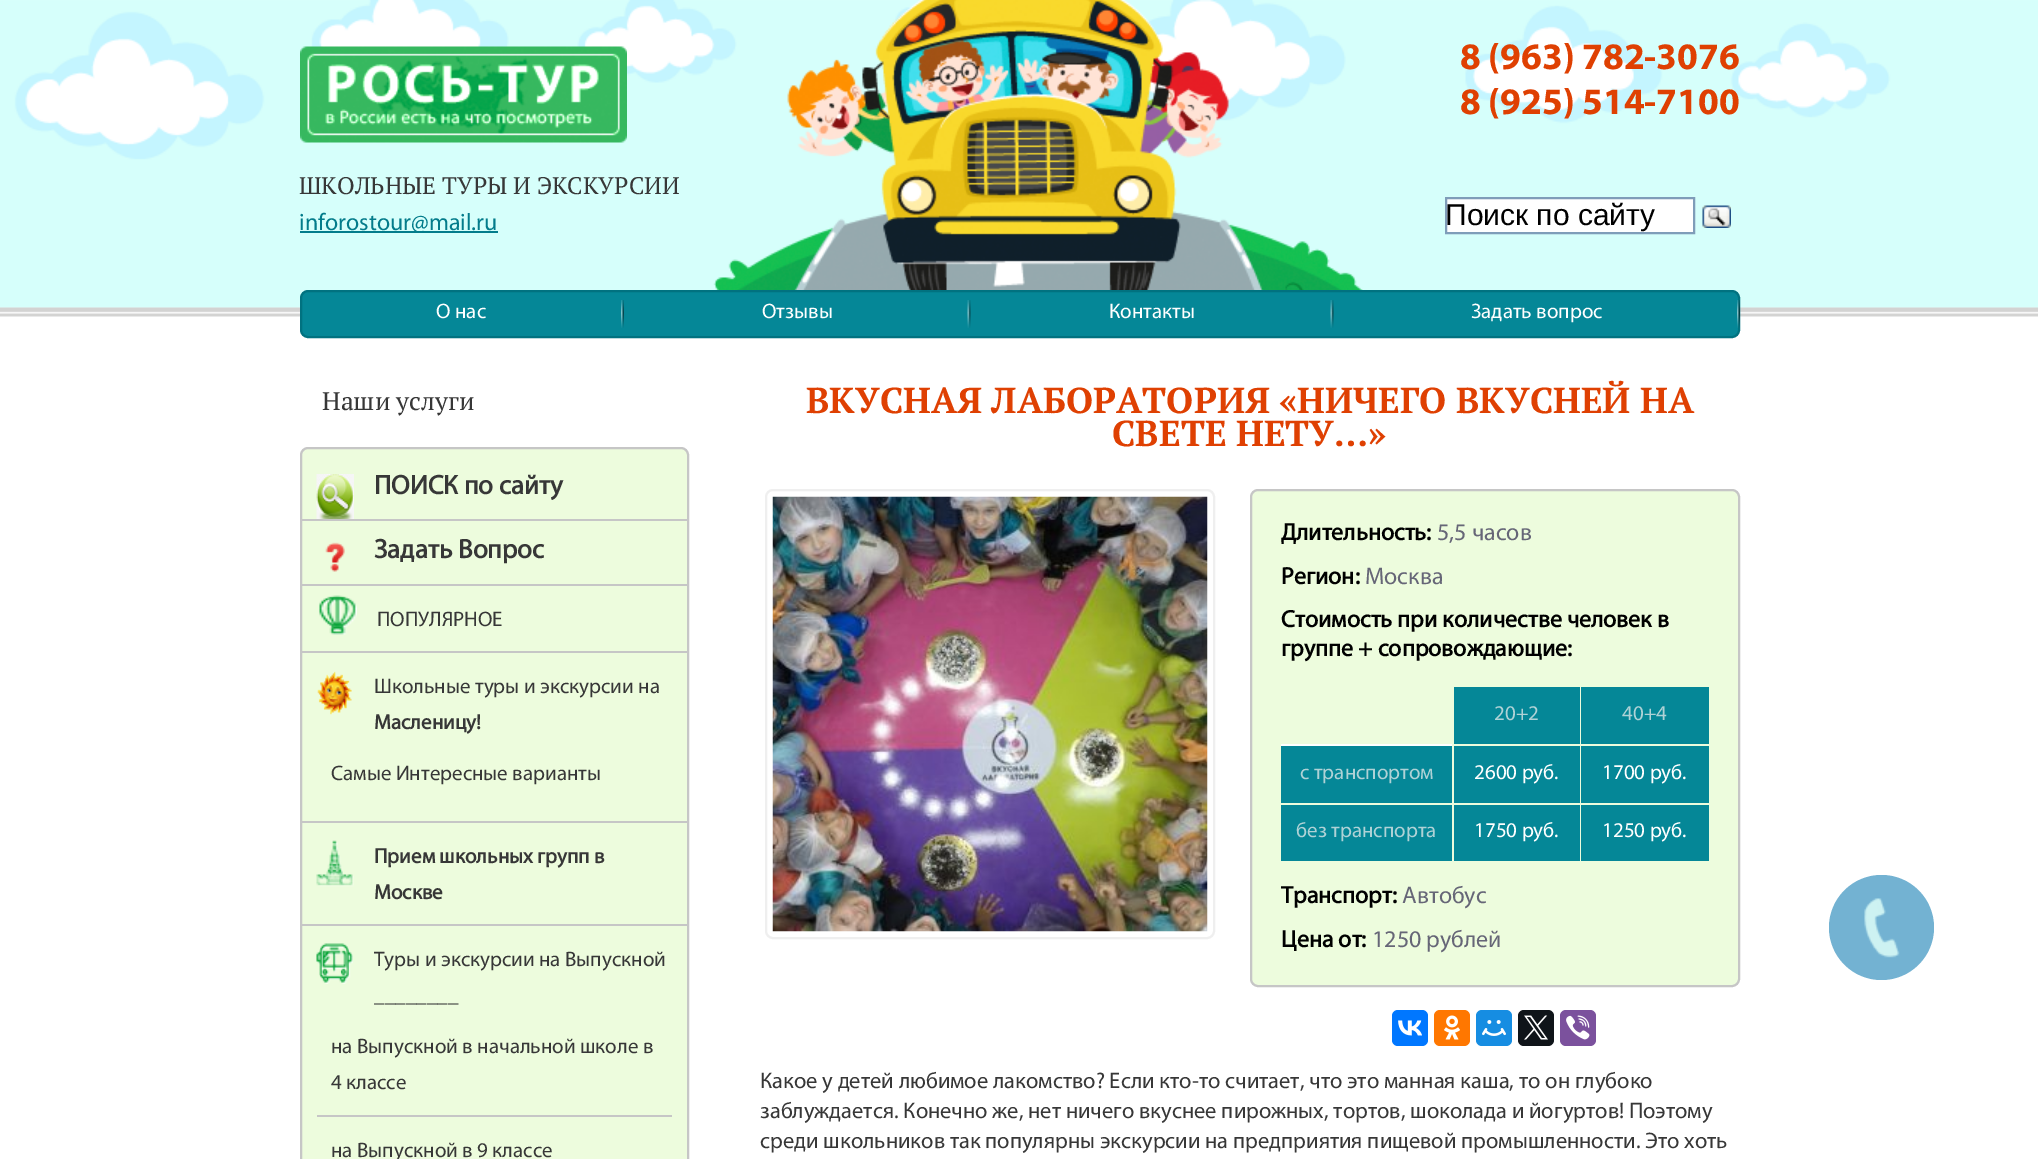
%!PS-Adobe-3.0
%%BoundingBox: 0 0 2038 1159
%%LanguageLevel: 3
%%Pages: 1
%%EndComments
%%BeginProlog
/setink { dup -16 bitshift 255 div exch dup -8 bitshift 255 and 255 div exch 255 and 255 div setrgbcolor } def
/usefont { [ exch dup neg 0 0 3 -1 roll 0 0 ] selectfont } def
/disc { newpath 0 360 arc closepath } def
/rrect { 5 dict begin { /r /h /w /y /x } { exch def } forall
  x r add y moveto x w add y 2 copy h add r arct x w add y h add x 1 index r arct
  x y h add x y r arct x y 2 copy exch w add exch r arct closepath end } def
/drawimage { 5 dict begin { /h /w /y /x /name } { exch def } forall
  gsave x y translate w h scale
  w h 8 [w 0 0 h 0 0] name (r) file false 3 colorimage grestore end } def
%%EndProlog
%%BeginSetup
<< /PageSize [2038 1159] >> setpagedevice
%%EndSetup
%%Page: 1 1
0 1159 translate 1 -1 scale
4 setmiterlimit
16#FFFFFF setink
0 0 2038 1159 rectfill
(img1.raw) 0 0 2038 308 drawimage
(img2.raw) 300 46 327 97 drawimage
(img3.raw) 713 0 650 290 drawimage
/Myriad-Bold 37.5 usefont
16#DF4002 setink
1460 69 moveto (8 \(963\) 782-3076) show
1460 114 moveto (8 \(925\) 514-7100) show
/PTSerif-Regular 24 usefont
16#373737 setink
299 194 moveto (ШКОЛЬНЫЕ ТУРЫ И ЭКСКУРСИИ) show
16#037C8B setink
300 231 198 2 rectfill
/Myriad-Regular 24 usefont
299 230 moveto (inforostour@mail.ru) show
16#FFFFFF setink
1446 198 moveto 1694 198 lineto 1694 233 lineto 1446 233 lineto closepath gsave fill grestore
16#7F9DB9 setink
2 setlinewidth
stroke
/LiberationSans-Regular 30 usefont
16#000000 setink
1445 225 moveto (Поиск по сайту) show
(img4.raw) 1702 205 29 23 drawimage
(img8.raw) 0 307 2038 10 drawimage
16#058797 setink
301 291 1438 46 7 rrect gsave fill grestore
16#017280 setink
stroke
/Myriad-Regular 21 usefont
16#FFFFFF setink
436 318 moveto (О нас) show
(img5.raw) 621 300 3 28 drawimage
762 318 moveto (Отзывы) show
(img6.raw) 967 300 4 28 drawimage
1109 318 moveto (Контакты) show
(img6.raw) 1330 300 4 28 drawimage
1471 318 moveto (Задать вопрос) show
(img7.raw) 1737 300 3 28 drawimage
/PTSerif-Regular 25.5 usefont
16#373737 setink
322 410 moveto (Наши услуги) show
16#EDFCDD setink
301 448 387 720 7 rrect gsave fill grestore
16#C6C6C6 setink
stroke
302 519 385 2 rectfill
(img9.raw) 316 474 38 45 drawimage
/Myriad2-Bold 27 usefont
16#373737 setink
374 494 moveto (ПОИСК по сайту) show
16#C6C6C6 setink
302 584 385 2 rectfill
(img10.raw) 325 542 20 30 drawimage
16#373737 setink
374 558 moveto (Задать Вопрос) show
16#C6C6C6 setink
302 651 385 2 rectfill
(img11.raw) 319 595 38 40 drawimage
/Myriad-Regular 21 usefont
16#373737 setink
377 626 moveto (ПОПУЛЯРНОЕ) show
16#C6C6C6 setink
302 821 385 2 rectfill
(img12.raw) 317 671 35 44 drawimage
16#373737 setink
374 693 moveto (Школьные туры и экскурсии на) show
/Myriad2-Bold 21 usefont
374 729 moveto (Масленицу!) show
/Myriad-Regular 21 usefont
331 780 moveto (Самые Интересные варианты) show
16#C6C6C6 setink
302 924 385 2 rectfill
(img13.raw) 316 840 38 47 drawimage
/Myriad2-Bold 21 usefont
16#373737 setink
374 863 moveto (Прием школьных групп в) show
374 899 moveto (Москве) show
(img14.raw) 316 943 37 41 drawimage
/Myriad-Regular 21 usefont
374 966 moveto (Туры и экскурсии на Выпускной) show
374 1002 moveto (________) show
16#C6C6C6 setink
317 1115 355 2 rectfill
16#373737 setink
[
    [(на Выпускной в начальной школе в) 331 1053]
    [(4 классе) 331 1089]
    [(на Выпускной в 9 классе) 331 1157]
] { aload pop moveto show } forall
/PTSerif-Bold 36 usefont
16#DF4002 setink
806 413 moveto (ВКУСНАЯ ЛАБОРАТОРИЯ «НИЧЕГО ВКУСНЕЙ НА) show
1112 446 moveto (СВЕТЕ НЕТУ…») show
16#EFEFEF setink
766 490 448 448 7 rrect stroke
(img15.raw) 772 496 436 436 drawimage
16#EDFCDD setink
1251 490 488 496 7 rrect gsave fill grestore
16#C6C6C6 setink
stroke
/Myriad2-Bold 24 usefont
16#000000 setink
1281 540 moveto (Длительность:) show
/Myriad-Regular 24 usefont
16#666677 setink
1437 540 moveto (5,5 часов) show
/Myriad2-Bold 24 usefont
16#000000 setink
1281 584 moveto (Регион:) show
/Myriad-Regular 24 usefont
16#666677 setink
1365 584 moveto (Москва) show
/Myriad2-Bold 24 usefont
16#000000 setink
1281 627 moveto (Стоимость при количестве человек в) show
1281 656 moveto (группе + сопровождающие:) show
16#058797 setink
1454 687 126 57 rectfill
/Myriad-Regular 21 usefont
16#AFD2D6 setink
1494 720 moveto (20+2) show
16#058797 setink
1581 687 128 57 rectfill
16#AFD2D6 setink
1622 720 moveto (40+4) show
16#058797 setink
1281 746 171 57 rectfill
16#FFFFFF setink
1281 744 171 2 rectfill
16#AFD2D6 setink
1300 779 moveto (с транспортом) show
16#058797 setink
1454 746 126 57 rectfill
16#FFFFFF setink
1474 779 moveto (2600 руб.) show
16#058797 setink
1581 746 128 57 rectfill
16#FFFFFF setink
1602 779 moveto (1700 руб.) show
16#058797 setink
1281 805 171 56 rectfill
16#AFD2D6 setink
1296 837 moveto (без транспорта) show
16#058797 setink
1454 805 126 56 rectfill
16#FFFFFF setink
1474 837 moveto (1750 руб.) show
16#058797 setink
1581 805 128 56 rectfill
16#FFFFFF setink
1602 837 moveto (1250 руб.) show
/Myriad2-Bold 24 usefont
16#000000 setink
1281 903 moveto (Транспорт:) show
/Myriad-Regular 24 usefont
16#666677 setink
1402 903 moveto (Автобус) show
/Myriad2-Bold 24 usefont
16#000000 setink
1281 947 moveto (Цена от:) show
/Myriad-Regular 24 usefont
16#666677 setink
1372 947 moveto (1250 рублей) show
16#0077FF setink
1392 1010 36 36 6 rrect fill
(img16.raw) 1398 1020 24 16 drawimage
16#FF7700 setink
1434 1010 36 36 6 rrect fill
(img17.raw) 1444 1015 16 25 drawimage
16#168DE2 setink
1476 1010 36 36 6 rrect fill
(img18.raw) 1482 1020 24 16 drawimage
16#0F1419 setink
1518 1010 36 36 6 rrect fill
(img19.raw) 1524 1015 24 25 drawimage
16#7B519D setink
1560 1010 36 36 6 rrect fill
(img20.raw) 1566 1015 24 25 drawimage
/Myriad-Regular 22.5 usefont
16#373737 setink
[
    [(Какое у детей любимое лакомство? Если кто-то считает, что это манная каша, то он глубоко) 760 1088]
    [(заблуждается. Конечно же, нет ничего вкуснее пирожных, тортов, шоколада и йогуртов! Поэтому) 760 1118]
    [(среди школьников так популярны экскурсии на предприятия пищевой промышленности. Это хоть) 760 1148]
] { aload pop moveto show } forall
16#73B2D2 setink
1881.5 927.5 52.5 disc fill
(img21.raw) 1864 898 36 60 drawimage
showpage
%%EOF
